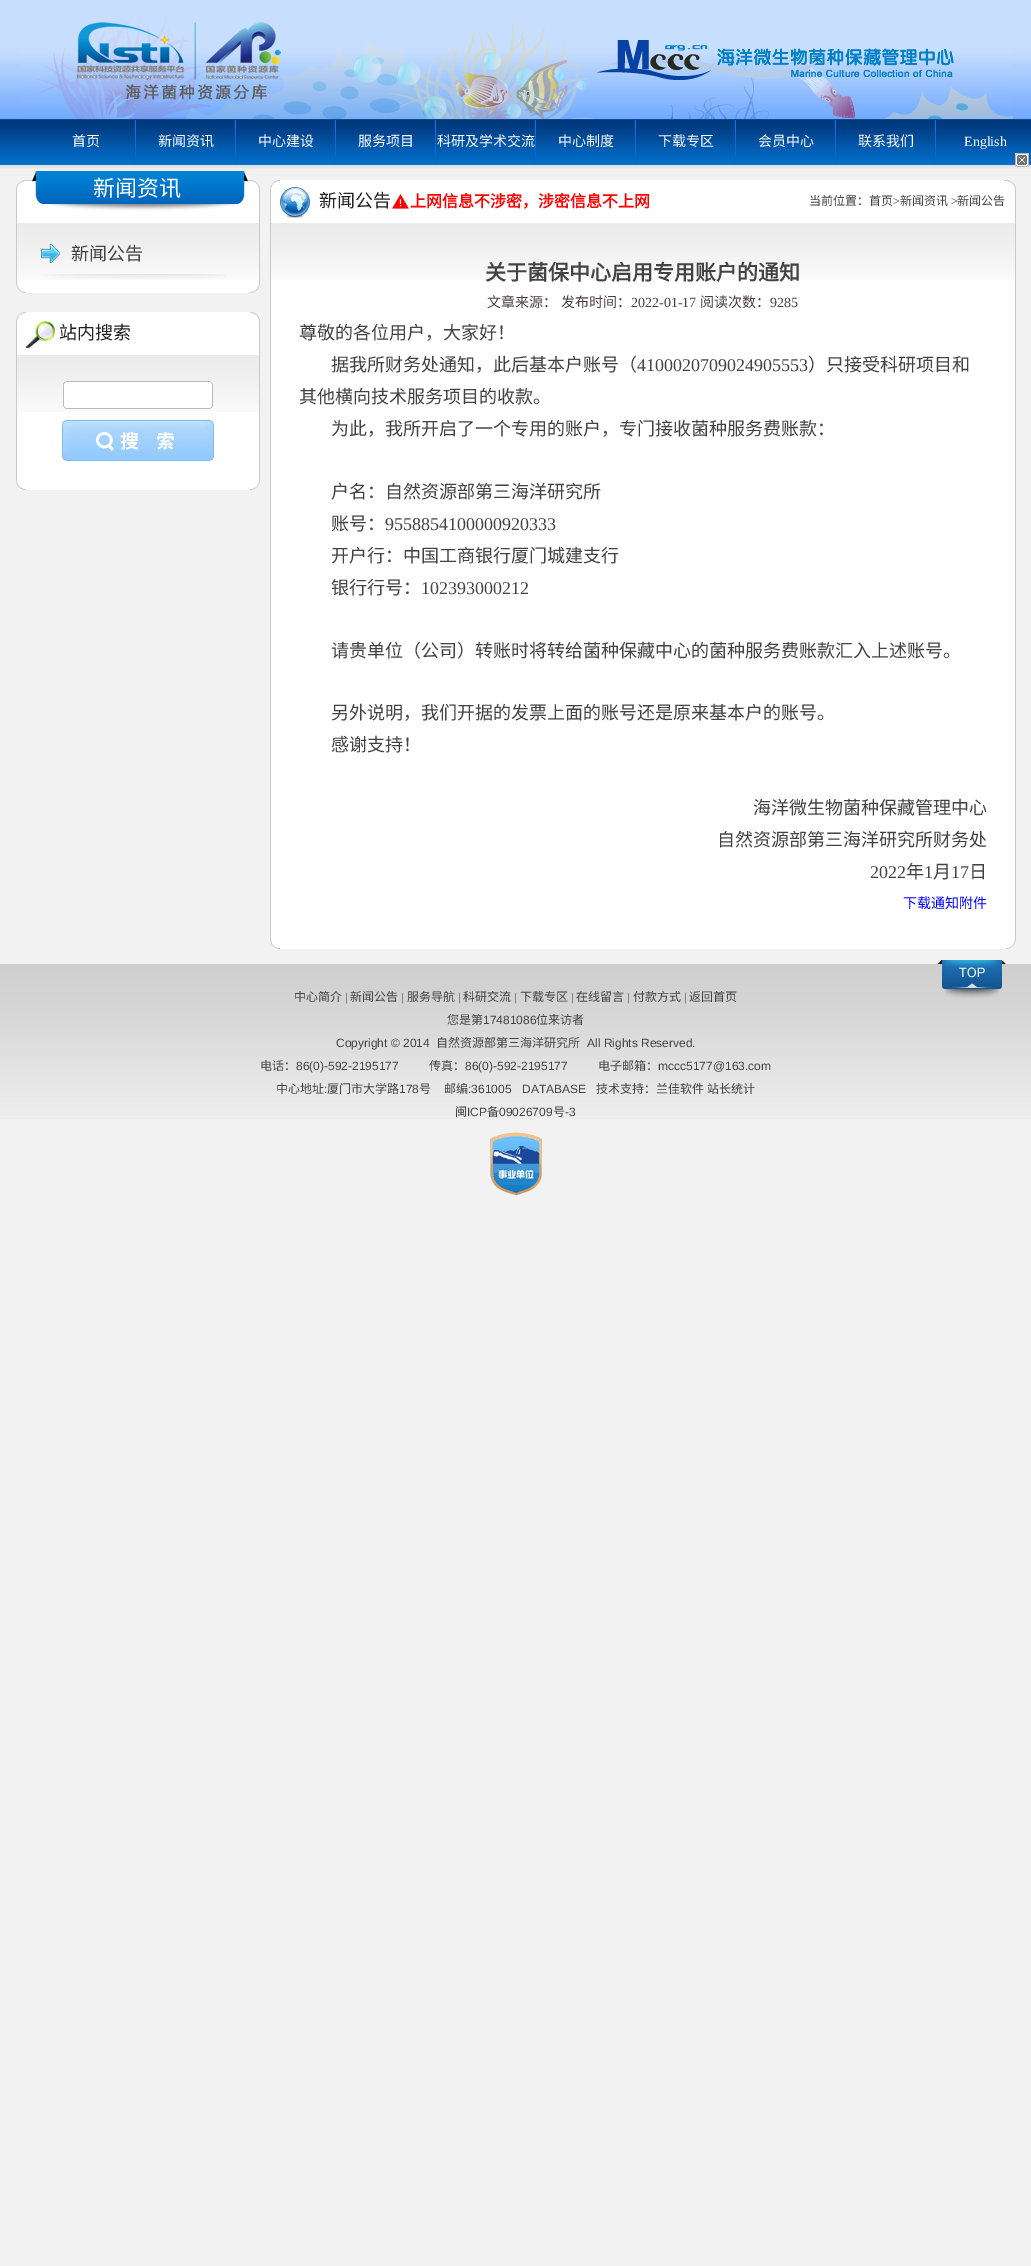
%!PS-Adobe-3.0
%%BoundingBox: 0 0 1031 2266
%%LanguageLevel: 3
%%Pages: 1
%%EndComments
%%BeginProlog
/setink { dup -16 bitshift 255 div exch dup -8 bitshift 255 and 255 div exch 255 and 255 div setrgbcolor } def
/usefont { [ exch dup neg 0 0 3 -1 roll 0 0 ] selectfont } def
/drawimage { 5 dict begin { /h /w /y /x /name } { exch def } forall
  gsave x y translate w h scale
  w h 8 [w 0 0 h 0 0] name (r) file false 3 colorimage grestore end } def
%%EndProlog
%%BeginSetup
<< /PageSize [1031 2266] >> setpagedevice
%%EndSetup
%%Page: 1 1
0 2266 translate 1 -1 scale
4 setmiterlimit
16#F2F2F2 setink
0 0 1031 2266 rectfill
(img1.raw) 0 0 1031 169 drawimage
(img2.raw) 19 15 994 104 drawimage
(img3.raw) 135 119 1 46 drawimage
/NotoSansCJKSC-Regular 14 usefont
16#FFFFFF setink
72 146 moveto (首页) show
(img3.raw) 235 119 1 46 drawimage
158 146 moveto (新闻资讯) show
(img3.raw) 335 119 1 46 drawimage
258 146 moveto (中心建设) show
(img3.raw) 435 119 1 46 drawimage
358 146 moveto (服务项目) show
(img3.raw) 535 119 1 46 drawimage
437 146 moveto (科研及学术交流) show
(img3.raw) 635 119 1 46 drawimage
558 146 moveto (中心制度) show
(img3.raw) 735 119 1 46 drawimage
658 146 moveto (下载专区) show
(img3.raw) 835 119 1 46 drawimage
758 146 moveto (会员中心) show
(img3.raw) 935 119 1 46 drawimage
858 146 moveto (联系我们) show
/LiberationSerif-Regular 14 usefont
964 146 moveto (English) show
(img4.raw) 16 171 244 52 drawimage
/NotoSansCJKSC-Regular 22 usefont
93 196 moveto (新闻资讯) show
17 280 242 3 rectfill
(img5.raw) 17 223 242 57 drawimage
16#C9C9C9 setink
259 223 1 60 rectfill
16 223 1 60 rectfill
(img6.raw) 41 244 185 35 drawimage
/NotoSansCJKSC-Regular 18 usefont
16#434343 setink
71 260 moveto (新闻公告) show
16#FFFFFF setink
26 283 224 10 rectfill
(img7.raw) 16 283 10 10 drawimage
(img8.raw) 250 283 10 10 drawimage
26 312 224 43 rectfill
(img9.raw) 16 312 10 43 drawimage
(img10.raw) 26 321 29 28 drawimage
16#222222 setink
59 339 moveto (站内搜索) show
(img11.raw) 250 312 10 43 drawimage
16#FFFFFF setink
17 412 242 68 rectfill
(img5.raw) 17 355 242 57 drawimage
16#C9C9C9 setink
259 355 1 125 rectfill
16 355 1 125 rectfill
(img12.raw) 63 381 150 28 drawimage
(img13.raw) 62 420 152 41 drawimage
16#FFFFFF setink
26 480 224 10 rectfill
(img7.raw) 16 480 10 10 drawimage
(img8.raw) 250 480 10 10 drawimage
280 180 724 43 rectfill
(img9.raw) 270 180 10 43 drawimage
(img14.raw) 280 187 30 31 drawimage
16#222222 setink
319 207 moveto (新闻公告) show
(img15.raw) 392 194 17 15 drawimage
/NotoSansCJKSC-Bold 16 usefont
16#FF0000 setink
410 207 moveto (上网信息不涉密，涉密信息不上网) show
(img16.raw) 1004 180 12 43 drawimage
/NotoSansCJKSC-Regular 12 usefont
16#434343 setink
809 205 moveto (当前位置：首页) show
/LiberationSerif-Regular 12 usefont
893 205 moveto (>) show
/NotoSansCJKSC-Regular 12 usefont
900 205 moveto (新闻资讯) show
/LiberationSerif-Regular 12 usefont
951 205 moveto (>) show
/NotoSansCJKSC-Regular 12 usefont
957 205 moveto (新闻公告) show
16#FFFFFF setink
271 280 744 659 rectfill
(img17.raw) 271 223 744 57 drawimage
16#C9C9C9 setink
1015 223 1 716 rectfill
270 223 1 716 rectfill
/NotoSansCJKSC-Bold 21 usefont
16#434343 setink
485 280 moveto (关于菌保中心启用专用账户的通知) show
/NotoSansCJKSC-Regular 14 usefont
16#4A3C3C setink
487 307 moveto (文章来源：) show
561 307 moveto (发布时间：) show
/LiberationSerif-Regular 14 usefont
631 307 moveto (2022-01-17) show
/NotoSansCJKSC-Regular 14 usefont
700 307 moveto (阅读次数：) show
/LiberationSerif-Regular 14 usefont
770 307 moveto (9285) show
/NotoSansCJKSC-Regular 18 usefont
16#434343 setink
299 339 moveto (尊敬的各位用户，大家好！) show
331 371 moveto (据我所财务处通知，此后基本户账号（) show
/LiberationSerif-Regular 18 usefont
637 371 moveto (4100020709024905553) show
/NotoSansCJKSC-Regular 18 usefont
[
    [(）只接受科研项目和) 808 371]
    [(其他横向技术服务项目的收款。) 299 403]
    [(为此，我所开启了一个专用的账户，专门接收菌种服务费账款：) 331 435]
    [(户名：自然资源部第三海洋研究所) 331 498]
    [(账号：) 331 530]
] { aload pop moveto show } forall
/LiberationSerif-Regular 18 usefont
385 530 moveto (9558854100000920333) show
/NotoSansCJKSC-Regular 18 usefont
331 562 moveto (开户行：中国工商银行厦门城建支行) show
331 594 moveto (银行行号：) show
/LiberationSerif-Regular 18 usefont
421 594 moveto (102393000212) show
/NotoSansCJKSC-Regular 18 usefont
[
    [(请贵单位（公司）转账时将转给菌种保藏中心的菌种服务费账款汇入上述账号。) 331 657]
    [(另外说明，我们开据的发票上面的账号还是原来基本户的账号。) 331 719]
    [(感谢支持！) 331 751]
    [(海洋微生物菌种保藏管理中心) 753 814]
    [(自然资源部第三海洋研究所财务处) 717 846]
] { aload pop moveto show } forall
/LiberationSerif-Regular 18 usefont
870 878 moveto (2022) show
/NotoSansCJKSC-Regular 18 usefont
906 878 moveto (年) show
/LiberationSerif-Regular 18 usefont
924 878 moveto (1) show
/NotoSansCJKSC-Regular 18 usefont
933 878 moveto (月) show
/LiberationSerif-Regular 18 usefont
951 878 moveto (17) show
/NotoSansCJKSC-Regular 18 usefont
969 878 moveto (日) show
/NotoSansCJKSC-Regular 14 usefont
16#0000FF setink
903 908 moveto (下载通知附件) show
16#FFFFFF setink
280 939 726 10 rectfill
(img7.raw) 270 939 10 10 drawimage
(img8.raw) 1006 939 10 10 drawimage
(img18.raw) 0 964 1031 155 drawimage
/NotoSansCJKSC-Regular 12 usefont
16#434343 setink
294 1001 moveto (中心简介) show
/LiberationSerif-Regular 12 usefont
345 1001 moveto (|) show
/NotoSansCJKSC-Regular 12 usefont
350 1001 moveto (新闻公告) show
/LiberationSerif-Regular 12 usefont
401 1001 moveto (|) show
/NotoSansCJKSC-Regular 12 usefont
407 1001 moveto (服务导航) show
/LiberationSerif-Regular 12 usefont
458 1001 moveto (|) show
/NotoSansCJKSC-Regular 12 usefont
463 1001 moveto (科研交流) show
/LiberationSerif-Regular 12 usefont
514 1001 moveto (|) show
/NotoSansCJKSC-Regular 12 usefont
520 1001 moveto (下载专区) show
/LiberationSerif-Regular 12 usefont
571 1001 moveto (|) show
/NotoSansCJKSC-Regular 12 usefont
576 1001 moveto (在线留言) show
/LiberationSerif-Regular 12 usefont
627 1001 moveto (|) show
/NotoSansCJKSC-Regular 12 usefont
633 1001 moveto (付款方式) show
/LiberationSerif-Regular 12 usefont
684 1001 moveto (|) show
/NotoSansCJKSC-Regular 12 usefont
689 1001 moveto (返回首页) show
(img19.raw) 938 960 68 38 drawimage
447 1024 moveto (您是第) show
/LiberationSans-Regular 12 usefont
483 1024 moveto (17481086) show
/NotoSansCJKSC-Regular 12 usefont
536 1024 moveto (位来访者) show
/LiberationSans-Regular 12 usefont
336 1047 moveto (Copyright © 2014) show
/NotoSansCJKSC-Regular 12 usefont
436 1047 moveto (自然资源部第三海洋研究所) show
/LiberationSans-Regular 12 usefont
587 1047 moveto (All Rights Reserved.) show
/NotoSansCJKSC-Regular 12 usefont
260 1070 moveto (电话：) show
/LiberationSans-Regular 12 usefont
296 1070 moveto (86\(0\)-592-2195177) show
/NotoSansCJKSC-Regular 12 usefont
429 1070 moveto (传真：) show
/LiberationSans-Regular 12 usefont
465 1070 moveto (86\(0\)-592-2195177) show
/NotoSansCJKSC-Regular 12 usefont
598 1070 moveto (电子邮箱：) show
/LiberationSans-Regular 12 usefont
658 1070 moveto (mccc5177@163.com) show
/NotoSansCJKSC-Regular 12 usefont
276 1093 moveto (中心地址) show
/LiberationSans-Regular 12 usefont
324 1093 moveto (:) show
/NotoSansCJKSC-Regular 12 usefont
327 1093 moveto (厦门市大学路) show
/LiberationSans-Regular 12 usefont
399 1093 moveto (178) show
/NotoSansCJKSC-Regular 12 usefont
419 1093 moveto (号) show
444 1093 moveto (邮编) show
/LiberationSans-Regular 12 usefont
468 1093 moveto (:361005) show
522 1093 moveto (DATABASE) show
/NotoSansCJKSC-Regular 12 usefont
[
    [(技术支持：兰佳软件) 596 1093]
    [(站长统计) 707 1093]
    [(闽) 455 1116]
] { aload pop moveto show } forall
/LiberationSans-Regular 12 usefont
467 1116 moveto (ICP) show
/NotoSansCJKSC-Regular 12 usefont
487 1116 moveto (备) show
/LiberationSans-Regular 12 usefont
499 1116 moveto (09026709) show
/NotoSansCJKSC-Regular 12 usefont
553 1116 moveto (号) show
/LiberationSans-Regular 12 usefont
565 1116 moveto (-3) show
(img20.raw) 490 1132 52 64 drawimage
(img21.raw) 1015 153 14 14 drawimage
showpage
%%EOF
